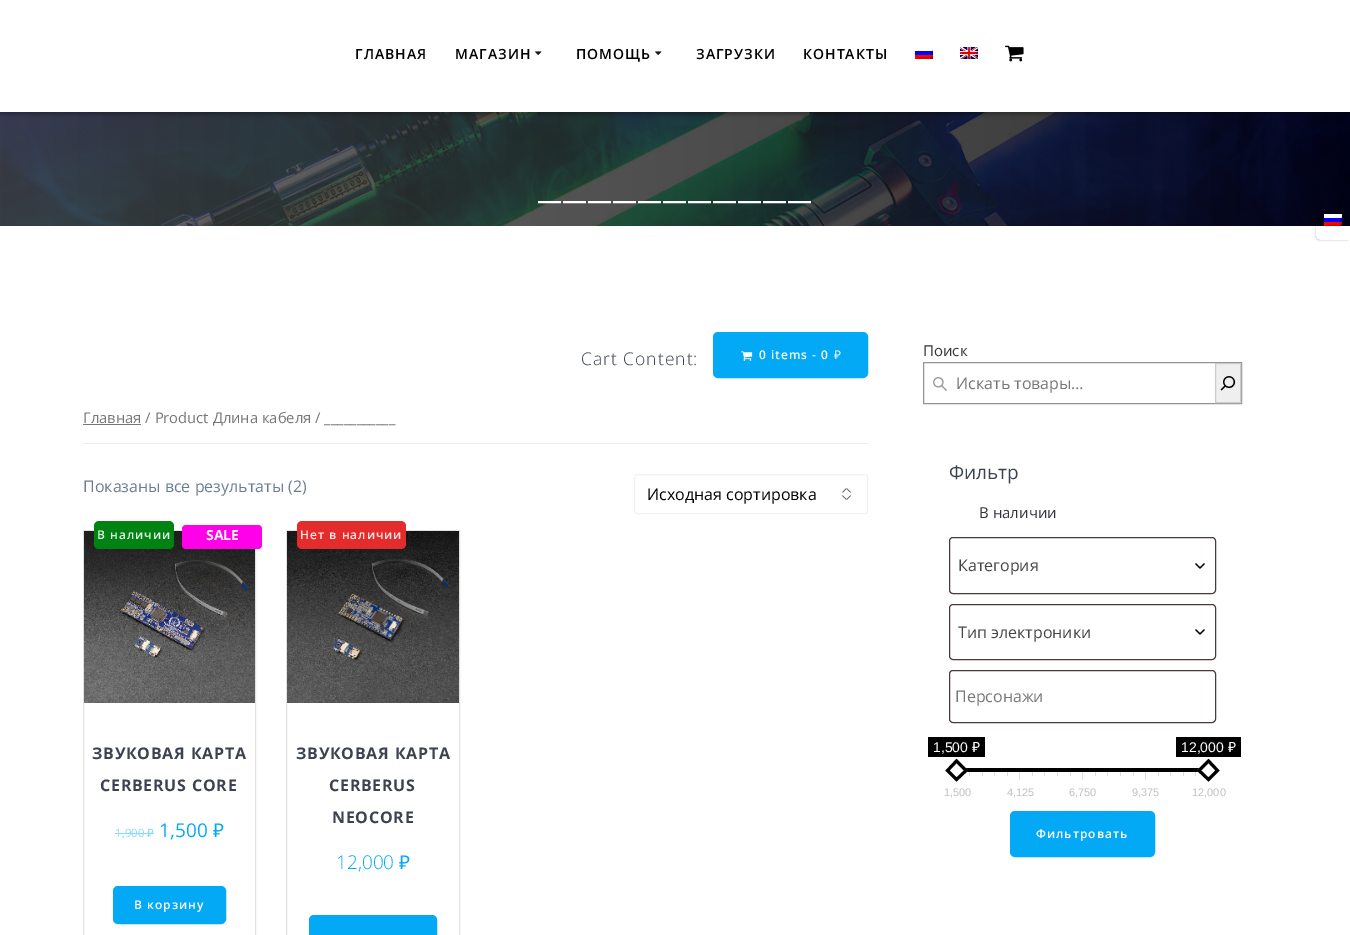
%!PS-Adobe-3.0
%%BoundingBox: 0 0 1350 935
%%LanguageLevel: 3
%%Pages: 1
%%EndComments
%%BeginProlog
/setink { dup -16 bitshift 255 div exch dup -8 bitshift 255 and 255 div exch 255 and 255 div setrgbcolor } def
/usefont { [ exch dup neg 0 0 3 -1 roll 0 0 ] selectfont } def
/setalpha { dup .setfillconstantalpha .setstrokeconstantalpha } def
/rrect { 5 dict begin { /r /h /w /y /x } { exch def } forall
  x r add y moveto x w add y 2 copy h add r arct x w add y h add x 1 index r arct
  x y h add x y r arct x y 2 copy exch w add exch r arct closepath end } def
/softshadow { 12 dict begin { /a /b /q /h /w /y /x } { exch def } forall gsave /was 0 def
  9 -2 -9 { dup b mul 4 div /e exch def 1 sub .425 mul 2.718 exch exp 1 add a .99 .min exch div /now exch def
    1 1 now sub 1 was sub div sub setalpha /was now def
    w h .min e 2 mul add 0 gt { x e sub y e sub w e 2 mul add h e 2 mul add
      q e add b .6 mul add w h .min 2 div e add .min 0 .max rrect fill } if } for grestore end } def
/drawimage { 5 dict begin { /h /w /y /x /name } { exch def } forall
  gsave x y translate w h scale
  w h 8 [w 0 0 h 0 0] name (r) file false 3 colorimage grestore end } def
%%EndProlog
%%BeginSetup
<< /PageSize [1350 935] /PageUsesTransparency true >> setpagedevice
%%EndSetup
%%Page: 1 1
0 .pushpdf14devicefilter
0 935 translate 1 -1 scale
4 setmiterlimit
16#FFFFFF setink
0 0 1350 935 rectfill
(img5.raw) 0 112 1350 114 drawimage
16#000000 setink
-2 -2 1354 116 0 2.5 0.33 softshadow
16#FFFFFF setink
0 0 1350 112 rectfill
/OpenSans-SemiBold 14 usefont
16#000000 setink
355 59 moveto 1 0 (ГЛАВНАЯ) ashow
455 59 moveto 1 0 (МАГАЗИН) ashow
(img1.raw) 535 51 7 4 drawimage
576 59 moveto 1 0 (ПОМОЩЬ) ashow
(img1.raw) 655 51 7 4 drawimage
696 59 moveto 1 0 (ЗАГРУЗКИ) ashow
803 59 moveto 1 0 (КОНТАКТЫ) ashow
(img2.raw) 915 49 18 10 drawimage
(img3.raw) 960 47 18 12 drawimage
(img4.raw) 1005 45 19 17 drawimage
/OpenSans-Light 56 usefont
16#FFFFFF setink
538 196 moveto 2 0 (___________) ashow
16#EDEDED setink
83 443 785 1 rectfill
/OpenSans-Light 17.5 usefont
16#3C424F setink
581 365 moveto 1 0 (Cart Content:) ashow
16#03A9F4 setink
714 333 153 44 4 rrect gsave fill grestore
2 setlinewidth
stroke
(img6.raw) 741 351 12 10 drawimage
/OpenSans-SemiBold 12 usefont
16#FFFFFF setink
759 359 moveto 1 0 (0 items - 0) ashow
/NotoSans-Regular 12 usefont
834 359 moveto 1 0 (₽) ashow
16#767676 setink
83 424 58 1 rectfill
/OpenSans-Regular 14.75 usefont
83 423 moveto (Главная / Product Длина кабеля / ___________) show
/OpenSans-Regular 16 usefont
16#6B7C93 setink
83 492 moveto (Показаны все результаты \(2\)) show
(img7.raw) 842 488 9 12 drawimage
16#F1F1F1 setink
1 setlinewidth
634.5 474.5 233 39 2.5 rrect stroke
16#000000 setink
647 500 moveto (Исходная сортировка) show
16#E0E1E1 setink
83.5 530.5 172 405 rectstroke
(img8.raw) 84 531 171 172 drawimage
16#018314 setink
94 521 80 28 5 rrect fill
/OpenSans-SemiBold 12 usefont
16#E6F3E8 setink
97 539 moveto 1 0 (В наличии) ashow
16#FF00E8 setink
182 525 80 24 4 rrect fill
/OpenSans-Bold 14 usefont
16#FFFFFF setink
206 540 moveto (SALE) show
/OpenSans-Bold 16 usefont
16#3C424F setink
92 759 moveto 0.75 0 (ЗВУКОВАЯ КАРТА) ashow
100 791 moveto 0.75 0 (CERBERUS CORE) ashow
/OpenSans-Regular 11.5 usefont
16#86D9FF setink
115 837 moveto (1,900) show
115 833 32 1 rectfill
/NotoSans-Regular 11.5 usefont
147 837 moveto (₽) show
147 833 7 1 rectfill
/OpenSans-Regular 19 usefont
16#03A9F4 setink
159 837 moveto (1,500) show
/NotoSans-Regular 19 usefont
213 837 moveto (₽) show
114 887 111 36 4 rrect gsave fill grestore
2 setlinewidth
stroke
/OpenSans-SemiBold 12 usefont
16#FFFFFF setink
134 909 moveto 1 0 (В корзину) ashow
16#E0E1E1 setink
1 setlinewidth
286.5 530.5 173 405 rectstroke
(img9.raw) 287 531 172 172 drawimage
16#E42C2C setink
297 521 109 28 5 rrect fill
16#FCEAEA setink
300 539 moveto 1 0 (Нет в наличии) ashow
/OpenSans-Bold 16 usefont
16#3C424F setink
296 759 moveto 0.75 0 (ЗВУКОВАЯ КАРТА) ashow
329 791 moveto 0.75 0 (CERBERUS) ashow
332 823 moveto 0.75 0 (NEOCORE) ashow
/OpenSans-Light 19 usefont
16#03A9F4 setink
336 869 moveto (12,000) show
/NotoSans-Regular 19 usefont
399 869 moveto (₽) show
310 916 126 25 4 rrect gsave fill grestore
2 setlinewidth
stroke
/OpenSans-Regular 15 usefont
16#313439 setink
923 356 moveto (Поиск) show
16#949494 setink
1 setlinewidth
923.5 362.5 318 41 rectstroke
(img10.raw) 933 377 14 14 drawimage
/OpenSans-Regular 16 usefont
16#767676 setink
956 389 moveto (Искать товары…) show
16#EFEFEF setink
1215.5 363.5 moveto 1240.5 363.5 lineto 1240.5 402.5 lineto 1215.5 402.5 lineto closepath gsave fill grestore
16#CCCCCC setink
stroke
(img11.raw) 1220 376 16 15 drawimage
/OpenSans-Regular 19 usefont
16#3C424F setink
949 479 moveto (Фильтр) show
/OpenSans-Regular 15 usefont
16#313439 setink
979 518 moveto (В наличии) show
16#4D3939 setink
949.5 537.5 266 56 3.5 rrect stroke
/OpenSans-Regular 16 usefont
16#444444 setink
958 571 moveto (Категория) show
16#000000 setink
1.3 setlinewidth
1 setlinecap
1 setlinejoin
1196 564 moveto 1200 568 lineto 1204 564 lineto stroke
16#4D3939 setink
1 setlinewidth
0 setlinecap
0 setlinejoin
949.5 604.5 266 55 3.5 rrect stroke
16#444444 setink
958 638 moveto (Тип электроники) show
16#000000 setink
1.3 setlinewidth
1 setlinecap
1 setlinejoin
1196 630 moveto 1200 634 lineto 1204 630 lineto stroke
16#4D3939 setink
1 setlinewidth
0 setlinecap
0 setlinejoin
949.5 670.5 266 52 3.5 rrect stroke
16#767676 setink
955 702 moveto (Персонажи) show
16#000000 setink
928 737 57 20 rectfill
/LiberationSans-Regular 14 usefont
16#FFFFFF setink
933 752 moveto (1,500) show
/NotoSans-Regular 14 usefont
972 752 moveto (₽) show
16#000000 setink
1176 737 65 20 rectfill
/LiberationSans-Regular 14 usefont
16#FFFFFF setink
1181 752 moveto (12,000) show
/NotoSans-Regular 14 usefont
1228 752 moveto (₽) show
16#000000 setink
957 768 251 4 rectfill
16#FFFFFF setink
956.5 759 moveto 968 770.5 lineto 956.5 782 lineto 945.5 770.5 lineto closepath fill
16#000000 setink
3 setlinewidth
956.5 761 moveto 966 770.5 lineto 956.5 779.5 lineto 947.5 770.5 lineto closepath stroke
16#FFFFFF setink
1208.5 759 moveto 1219.5 770.5 lineto 1208.5 782 lineto 1197 770.5 lineto closepath fill
16#000000 setink
1208.5 761 moveto 1217.5 770.5 lineto 1208.5 779.5 lineto 1199 770.5 lineto closepath stroke
[
    [969 772 1 4 16#DEDEDE]
    [982 772 1 4 16#DEDEDE]
    [994 772 1 4 16#DEDEDE]
    [1007 772 1 4 16#DEDEDE]
    [1019 772 1 8 16#DEDEDE]
    [1032 772 1 4 16#DEDEDE]
    [1044 772 1 4 16#DEDEDE]
    [1057 772 1 4 16#DEDEDE]
    [1070 772 1 4 16#DEDEDE]
    [1082 772 1 8 16#DEDEDE]
    [1095 772 1 4 16#DEDEDE]
    [1107 772 1 4 16#DEDEDE]
    [1120 772 1 4 16#DEDEDE]
    [1133 772 1 4 16#DEDEDE]
    [1145 772 1 8 16#DEDEDE]
    [1158 772 1 4 16#DEDEDE]
    [1170 772 1 4 16#DEDEDE]
    [1183 772 1 4 16#DEDEDE]
    [1195 772 1 4 16#DEDEDE]
] { aload pop setink rectfill } forall
/LiberationSans-Regular 11 usefont
16#C0C0C0 setink
[
    [(1,500) 944 796]
    [(4,125) 1007 796]
    [(6,750) 1069 796]
    [(9,375) 1132 796]
    [(12,000) 1192 796]
] { aload pop moveto show } forall
16#03A9F4 setink
1011 812 143 44 4 rrect gsave fill grestore
2 setlinewidth
stroke
/OpenSans-SemiBold 12 usefont
16#FFFFFF setink
1036 838 moveto 1 0 (Фильтровать) ashow
gsave
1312 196 moveto 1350 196 lineto 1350 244 lineto 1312 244 lineto closepath 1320 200 moveto 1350 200 lineto 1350 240 lineto 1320 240 lineto 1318 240 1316 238 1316 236 curveto 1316 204 lineto 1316 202 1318 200 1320 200 curveto closepath eoclip newpath
16#000000 setink
1315 199 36 42 5 0.5 0.1 softshadow
grestore
(img12.raw) 1324 214 18 12 drawimage
.poppdf14devicefilter showpage
%%EOF
